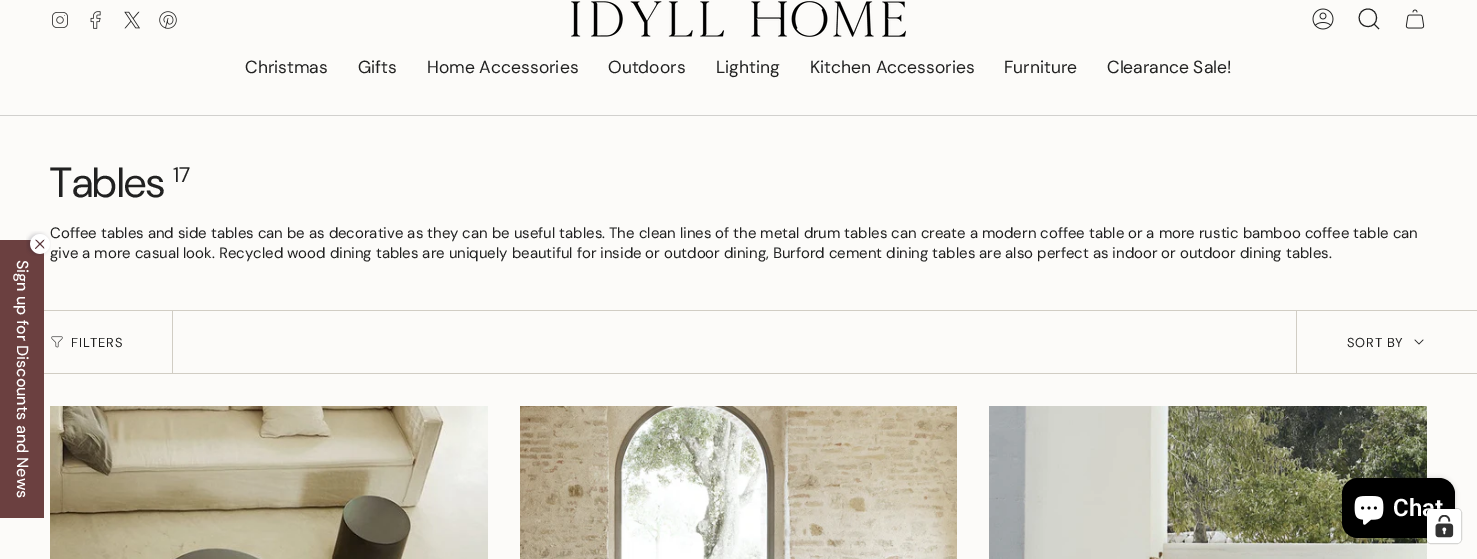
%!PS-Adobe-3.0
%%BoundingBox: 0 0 1477 559
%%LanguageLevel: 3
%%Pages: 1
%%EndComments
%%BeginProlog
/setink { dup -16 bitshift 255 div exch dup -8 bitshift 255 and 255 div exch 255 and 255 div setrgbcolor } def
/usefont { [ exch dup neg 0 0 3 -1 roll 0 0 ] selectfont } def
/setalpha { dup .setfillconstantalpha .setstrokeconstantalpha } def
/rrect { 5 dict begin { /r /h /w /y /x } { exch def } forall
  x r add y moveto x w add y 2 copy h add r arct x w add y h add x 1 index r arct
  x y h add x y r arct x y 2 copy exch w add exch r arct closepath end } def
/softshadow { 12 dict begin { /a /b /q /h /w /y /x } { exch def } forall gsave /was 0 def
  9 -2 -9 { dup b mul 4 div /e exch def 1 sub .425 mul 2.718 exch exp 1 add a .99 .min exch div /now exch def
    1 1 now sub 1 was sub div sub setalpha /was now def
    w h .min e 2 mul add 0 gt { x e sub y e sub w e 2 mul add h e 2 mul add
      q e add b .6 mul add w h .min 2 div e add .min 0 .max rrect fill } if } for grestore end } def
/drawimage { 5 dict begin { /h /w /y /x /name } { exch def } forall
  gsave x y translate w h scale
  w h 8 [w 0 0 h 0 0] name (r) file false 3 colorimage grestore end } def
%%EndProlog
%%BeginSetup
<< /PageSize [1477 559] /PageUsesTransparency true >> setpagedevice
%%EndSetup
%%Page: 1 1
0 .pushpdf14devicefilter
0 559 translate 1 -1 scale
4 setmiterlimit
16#FCFBF9 setink
0 0 1477 559 rectfill
(img1.raw) 52 12 16 16 drawimage
(img2.raw) 90 11 11 18 drawimage
(img3.raw) 124 11 16 18 drawimage
(img4.raw) 159 11 18 18 drawimage
(img5.raw) 571 1 335 36 drawimage
(img6.raw) 1312 8 22 22 drawimage
16#212121 setink
1368 9 moveto 1379.5 9 1379.5 27 1367.5 26.5 curveto 1356 26 1356.5 9 1368 9 curveto closepath 1374 24 moveto 1379 29 lineto stroke
(img7.raw) 1405 9 20 20 drawimage
/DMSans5-Regular 17.5 usefont
[
    [(Christmas) 245 73]
    [(Gifts) 358 73]
    [(Home Accessories) 427 73]
    [(Outdoors) 608 73]
    [(Lighting) 716 73]
    [(Kitchen Accessories) 810 73]
    [(Furniture) 1004 73]
    [(Clearance Sale!) 1107 73]
] { aload pop moveto show } forall
16#D1D0CE setink
0 115 1477 1 rectfill
/DMSans-Regular 42 usefont
16#212121 setink
50 197 moveto (Tables) show
/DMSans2-Regular 21 usefont
173 182 moveto (17) show
/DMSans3-Regular 15 usefont
50 238 moveto (Coffee tables and side tables can be as decorative as they can be useful tables. The clean lines of the metal drum tables can create a modern coffee table or a more rustic bamboo coffee table can) show
50 258 moveto (give a more casual look. Recycled wood dining tables are uniquely beautiful for inside or outdoor dining, Burford cement dining tables are also perfect as indoor or outdoor dining tables.) show
[
    [44 310 1433 1 16#D1CDC4]
    [44 373 1433 1 16#D1CDC4]
    [172 311 1 62 16#D1CDC4]
] { aload pop setink rectfill } forall
(img8.raw) 51 336 12 12 drawimage
/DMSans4-Regular 13 usefont
16#212121 setink
71 347 moveto 0.75 0 (FILTERS) ashow
16#D1CDC4 setink
1296 311 1 62 rectfill
16#212121 setink
1347 347 moveto 0.75 0 (SORT BY) ashow
0.7 setlinewidth
1 setlinecap
1 setlinejoin
1415 340 moveto 1419 344 lineto 1423 340 lineto stroke
(img9.raw) 50 406 438 153 drawimage
(img10.raw) 520 406 437 153 drawimage
(img11.raw) 989 406 438 153 drawimage
16#6B4040 setink
0 240 44 278 rectfill
(img12.raw) 26 231 25 25 drawimage
/DMSans-Medium 16 usefont
16#FFFFFF setink
gsave 17 260 translate 90 rotate 0 0 moveto (Sign up for Discounts and News) show grestore
16#000000 setink
1342 478 113 60 16 2.5 0.15 softshadow
1342 478 113 60 16 rrect fill
(img13.raw) 1354 496 30 29 drawimage
/Roboto-SemiBold 24 usefont
16#FFFFFF setink
1393 516 moveto (Chat) show
0.15 setalpha
16#000000 setink
1 setlinewidth
0 setlinecap
0 setlinejoin
1426.5 508.5 35 35 4.5 rrect stroke
1 setalpha
16#FFFFFF setink
1427 509 34 34 4 rrect fill
(img14.raw) 1435 515 19 23 drawimage
.poppdf14devicefilter showpage
%%EOF
